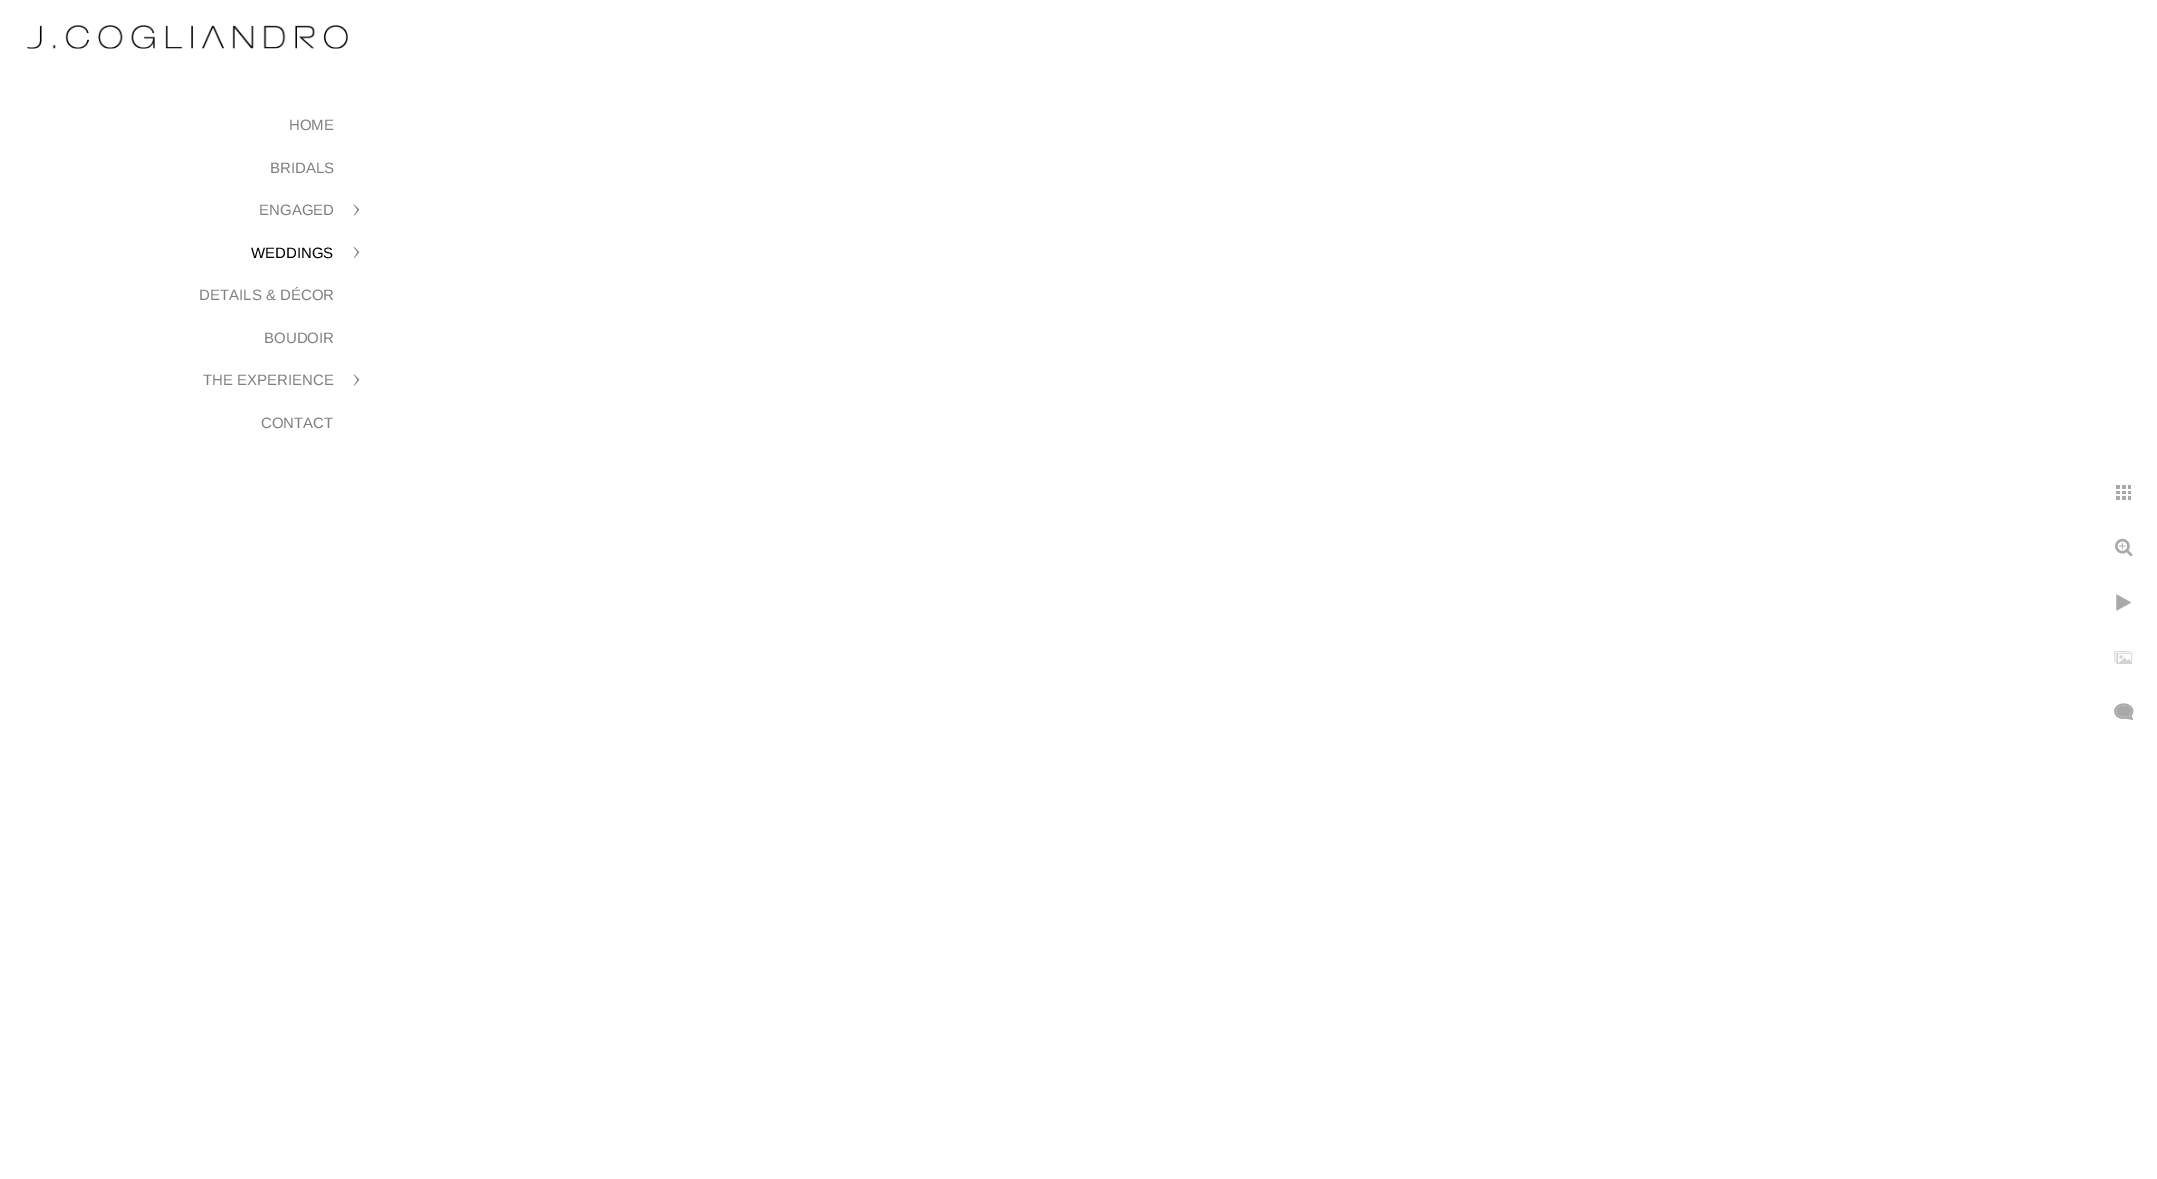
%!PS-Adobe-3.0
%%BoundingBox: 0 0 2157 1179
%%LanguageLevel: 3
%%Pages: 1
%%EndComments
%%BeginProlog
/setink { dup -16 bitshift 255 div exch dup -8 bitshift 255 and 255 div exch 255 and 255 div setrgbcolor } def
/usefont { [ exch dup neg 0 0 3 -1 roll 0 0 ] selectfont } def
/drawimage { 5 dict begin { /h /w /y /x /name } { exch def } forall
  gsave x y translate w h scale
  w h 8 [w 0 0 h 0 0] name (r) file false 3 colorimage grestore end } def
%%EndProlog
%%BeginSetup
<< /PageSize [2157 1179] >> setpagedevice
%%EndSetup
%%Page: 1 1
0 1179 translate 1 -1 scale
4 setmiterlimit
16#FFFFFF setink
0 0 2157 1179 rectfill
(img1.raw) 27 25 321 24 drawimage
/LiberationSans-Regular 15 usefont
16#808080 setink
[
    [(HOME) 289 130]
    [(BRIDALS) 270 173]
    [(ENGAGED) 259 215]
] { aload pop moveto show } forall
(img2.raw) 353 204 7 12 drawimage
16#000000 setink
251 258 moveto (WEDDINGS) show
(img3.raw) 353 246 7 13 drawimage
16#808080 setink
[
    [(DETAILS & DÉCOR) 199 300]
    [(BOUDOIR) 264 343]
    [(THE EXPERIENCE) 203 385]
] { aload pop moveto show } forall
(img2.raw) 353 374 7 12 drawimage
261 428 moveto (CONTACT) show
(img4.raw) 2116 485 15 15 drawimage
(img5.raw) 2115 538 18 19 drawimage
(img6.raw) 2116 594 15 17 drawimage
(img7.raw) 2114 651 19 13 drawimage
(img8.raw) 2114 703 20 18 drawimage
showpage
%%EOF
